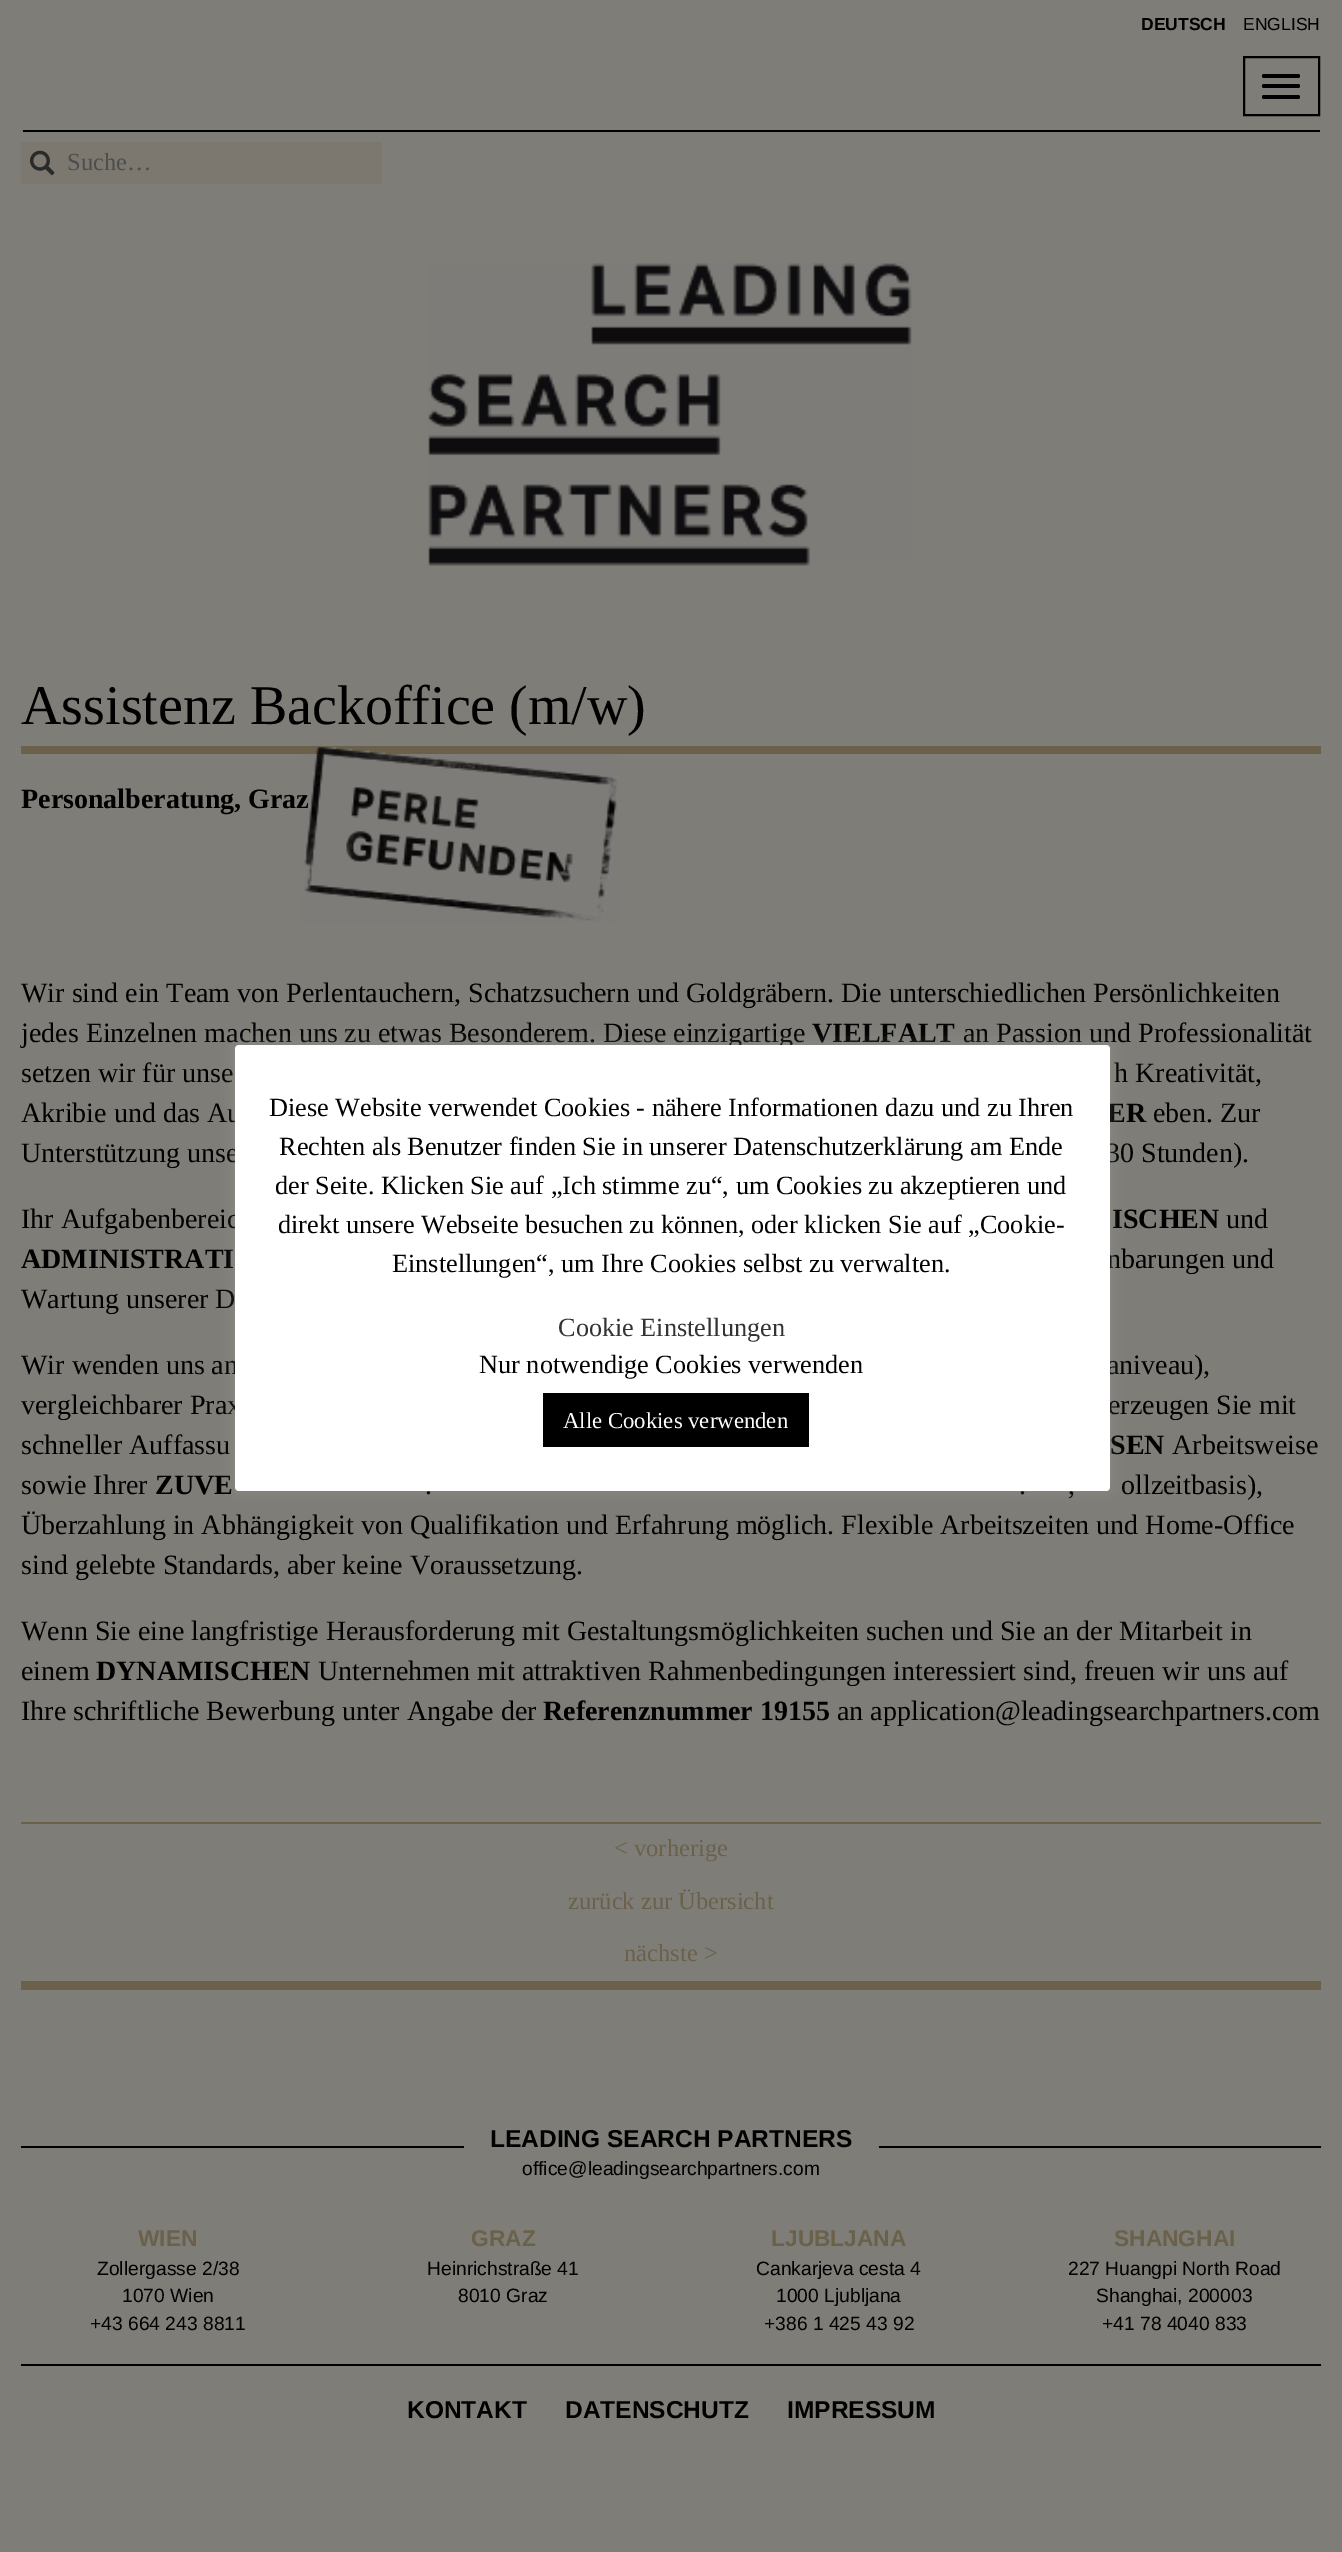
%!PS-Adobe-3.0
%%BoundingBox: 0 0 1342 2552
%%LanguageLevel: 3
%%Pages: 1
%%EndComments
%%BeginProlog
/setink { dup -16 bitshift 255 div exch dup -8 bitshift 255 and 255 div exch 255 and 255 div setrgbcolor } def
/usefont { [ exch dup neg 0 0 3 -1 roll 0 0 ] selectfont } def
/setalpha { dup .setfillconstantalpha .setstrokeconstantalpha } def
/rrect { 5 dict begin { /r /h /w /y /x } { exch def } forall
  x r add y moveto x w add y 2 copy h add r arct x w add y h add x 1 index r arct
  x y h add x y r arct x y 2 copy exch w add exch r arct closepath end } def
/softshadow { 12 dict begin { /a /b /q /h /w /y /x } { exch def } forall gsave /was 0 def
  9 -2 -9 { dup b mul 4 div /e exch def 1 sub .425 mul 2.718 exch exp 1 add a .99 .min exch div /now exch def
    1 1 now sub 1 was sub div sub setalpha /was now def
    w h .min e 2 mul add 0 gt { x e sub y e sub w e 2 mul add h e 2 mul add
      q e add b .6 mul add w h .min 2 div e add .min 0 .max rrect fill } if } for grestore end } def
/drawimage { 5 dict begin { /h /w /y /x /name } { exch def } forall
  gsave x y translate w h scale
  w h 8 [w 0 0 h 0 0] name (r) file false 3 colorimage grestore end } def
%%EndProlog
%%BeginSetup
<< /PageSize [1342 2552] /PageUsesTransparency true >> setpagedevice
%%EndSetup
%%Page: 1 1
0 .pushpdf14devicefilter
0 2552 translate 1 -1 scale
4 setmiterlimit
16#7E7D78 setink
0 0 1342 2552 rectfill
16#000000 setink
23 130 1297 2 rectfill
/LiberationSans-Bold 17.5 usefont
1141 30 moveto (DEUTSCH) show
/LiberationSans-Regular 17.5 usefont
1243 30 moveto (ENGLISH) show
2 setlinewidth
1244 57 75 58 rectstroke
1262 74 38 4 2 rrect fill
1262 84 38 4 2 rrect fill
1262 95 38 4 2 rrect fill
16#7C7870 setink
21 142 361 42 rectfill
(img1.raw) 29 150 26 26 drawimage
/LiberationSerif-Regular 24.5 usefont
16#4D4D4D setink
67 170 moveto (Suche…) show
(img2.raw) 428 263 484 303 drawimage
16#6B614B setink
21 746 1300 8 rectfill
/LiberationSerif-Regular 56 usefont
16#000000 setink
21 724 moveto (Assistenz Backoffice \(m/w\)) show
/LiberationSerif-Bold 28 usefont
21 808 moveto (Personalberatung, Graz) show
(img3.raw) 302 746 316 177 drawimage
/LiberationSerif-Regular 28 usefont
21 1002 moveto (Wir sind ein Team von Perlentauchern, Schatzsuchern und Goldgräbern. Die unterschiedlichen Persönlichkeiten) show
21 1042 moveto (jedes Einzelnen machen uns zu etwas Besonderem. Diese einzigartige) show
/LiberationSerif-Bold 28 usefont
812 1042 moveto (VIELFALT) show
/LiberationSerif-Regular 28 usefont
[
    [(an Passion und Professionalität) 963 1042]
    [(setzen wir für unse) 21 1082]
    [(h Kreativität,) 1114 1082]
    [(Akribie und das Au) 21 1122]
] { aload pop moveto show } forall
/LiberationSerif-Bold 28 usefont
1107 1122 moveto (ER) show
/LiberationSerif-Regular 28 usefont
[
    [(eben. Zur) 1153 1122]
    [(Unterstützung unse) 21 1162]
    [(30 Stunden\).) 1106 1162]
    [(Ihr Aufgabenbereic) 21 1228]
] { aload pop moveto show } forall
/LiberationSerif-Bold 28 usefont
1112 1228 moveto (ISCHEN) show
/LiberationSerif-Regular 28 usefont
1226 1228 moveto (und) show
/LiberationSerif-Bold 28 usefont
21 1268 moveto (ADMINISTRATI) show
/LiberationSerif-Regular 28 usefont
[
    [(nbarungen und) 1107 1268]
    [(Wartung unserer D) 21 1308]
    [(Wir wenden uns an) 21 1374]
    [(aniveau\),) 1107 1374]
    [(vergleichbarer Prax) 21 1414]
    [(erzeugen Sie mit) 1108 1414]
    [(schneller Auffassu) 21 1454]
] { aload pop moveto show } forall
/LiberationSerif-Bold 28 usefont
1110 1454 moveto (SEN) show
/LiberationSerif-Regular 28 usefont
1172 1454 moveto (Arbeitsweise) show
21 1494 moveto (sowie Ihrer) show
/LiberationSerif-Bold 28 usefont
155 1494 moveto (ZUVE) show
/LiberationSerif-Regular 28 usefont
[
    [(.) 425 1494]
    [(.) 1019 1494]
    [(,) 1068 1494]
    [(ollzeitbasis\),) 1121 1494]
    [(Überzahlung in Abhängigkeit von Qualifikation und Erfahrung möglich. Flexible Arbeitszeiten und Home-Office) 21 1534]
    [(sind gelebte Standards, aber keine Voraussetzung.) 21 1574]
    [(Wenn Sie eine langfristige Herausforderung mit Gestaltungsmöglichkeiten suchen und Sie an der Mitarbeit in) 21 1640]
    [(einem) 21 1680]
] { aload pop moveto show } forall
/LiberationSerif-Bold 28 usefont
96 1680 moveto (DYNAMISCHEN) show
/LiberationSerif-Regular 28 usefont
318 1680 moveto (Unternehmen mit attraktiven Rahmenbedingungen interessiert sind, freuen wir uns auf) show
21 1720 moveto (Ihre schriftliche Bewerbung unter Angabe der) show
/LiberationSerif-Bold 28 usefont
543 1720 moveto (Referenznummer 19155) show
/LiberationSerif-Regular 28 usefont
837 1720 moveto (an application@leadingsearchpartners.com) show
16#6B614B setink
21 1822 1300 2 rectfill
21 1981 1300 9 rectfill
/LiberationSerif-Regular 24.5 usefont
[
    [(< vorherige) 614 1856]
    [(zurück zur Übersicht) 568 1909]
    [(nächste >) 624 1961]
] { aload pop moveto show } forall
16#ACABAB setink
235 1043 875 446 4 9 0.3 softshadow
16#FFFFFF setink
235 1045 875 446 4 rrect fill
/LiberationSerif-Regular 26.25 usefont
16#000000 setink
[
    [(Diese Website verwendet Cookies - nähere Informationen dazu und zu Ihren) 269 1116]
    [(Rechten als Benutzer finden Sie in unserer Datenschutzerklärung am Ende) 279 1155]
    [(der Seite. Klicken Sie auf „Ich stimme zu“, um Cookies zu akzeptieren und) 275 1194]
    [(direkt unsere Webseite besuchen zu können, oder klicken Sie auf „Cookie-) 278 1233]
    [(Einstellungen“, um Ihre Cookies selbst zu verwalten.) 392 1272]
] { aload pop moveto show } forall
16#333333 setink
558 1336 moveto (Cookie Einstellungen) show
16#000000 setink
479 1373 moveto (Nur notwendige Cookies verwenden) show
543 1393 266 54 rectfill
/LiberationSerif-Regular 22.75 usefont
16#FFFFFF setink
563 1428 moveto (Alle Cookies verwenden) show
16#000000 setink
21 2146 1300 2 rectfill
16#7E7D78 setink
464 2146 415 2 rectfill
/LiberationSans-Bold 24.5 usefont
16#000000 setink
490 2147 moveto (LEADING SEARCH PARTNERS) show
/LiberationSans-Regular 19.25 usefont
522 2175 moveto (office@leadingsearchpartners.com) show
/LiberationSans-Bold 22.75 usefont
16#6B614B setink
138 2246 moveto (WIEN) show
/LiberationSans-Regular 19.25 usefont
16#000000 setink
[
    [(Zollergasse 2/38) 97 2275]
    [(1070 Wien) 122 2302]
    [(+43 664 243 8811) 90 2330]
] { aload pop moveto show } forall
/LiberationSans-Bold 22.75 usefont
16#6B614B setink
471 2246 moveto (GRAZ) show
/LiberationSans-Regular 19.25 usefont
16#000000 setink
427 2275 moveto (Heinrichstraße 41) show
458 2302 moveto (8010 Graz) show
/LiberationSans-Bold 22.75 usefont
16#6B614B setink
771 2246 moveto (LJUBLJANA) show
/LiberationSans-Regular 19.25 usefont
16#000000 setink
[
    [(Cankarjeva cesta 4) 756 2275]
    [(1000 Ljubljana) 776 2302]
    [(+386 1 425 43 92) 764 2330]
] { aload pop moveto show } forall
/LiberationSans-Bold 22.75 usefont
16#6B614B setink
1114 2246 moveto (SHANGHAI) show
/LiberationSans-Regular 19.25 usefont
16#000000 setink
[
    [(227 Huangpi North Road) 1068 2275]
    [(Shanghai, 200003) 1096 2302]
    [(+41 78 4040 833) 1102 2330]
] { aload pop moveto show } forall
21 2364 1300 2 rectfill
/LiberationSans-Bold 24.5 usefont
[
    [(KONTAKT) 407 2418]
    [(DATENSCHUTZ) 565 2418]
    [(IMPRESSUM) 787 2418]
] { aload pop moveto show } forall
.poppdf14devicefilter showpage
%%EOF
